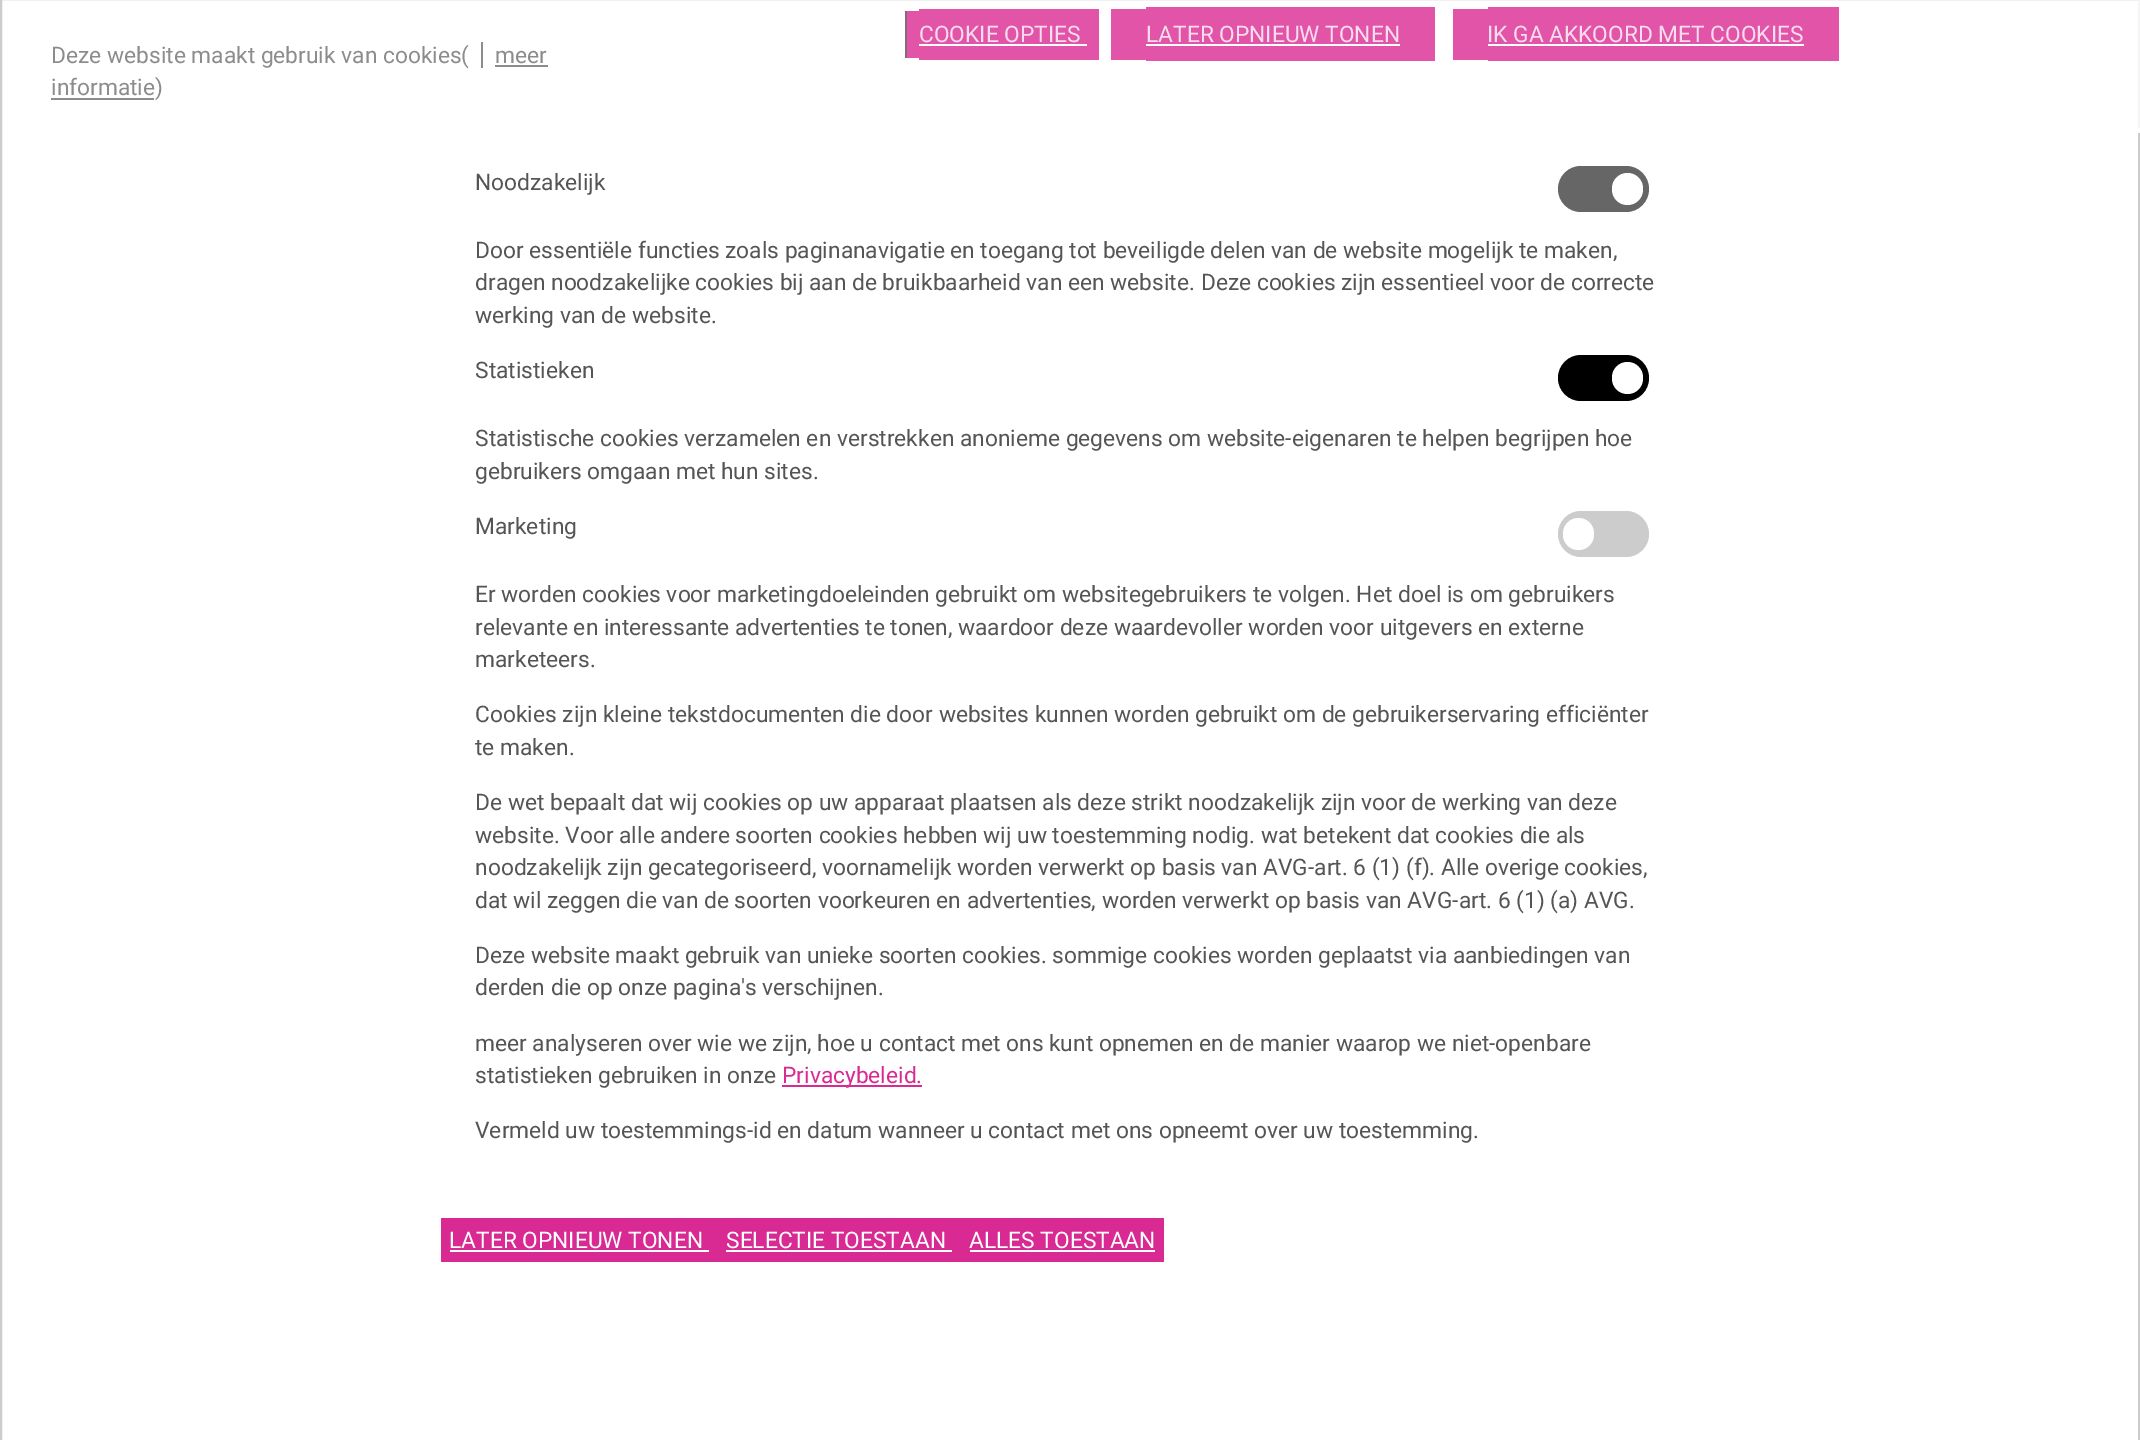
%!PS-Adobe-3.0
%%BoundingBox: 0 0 2140 1440
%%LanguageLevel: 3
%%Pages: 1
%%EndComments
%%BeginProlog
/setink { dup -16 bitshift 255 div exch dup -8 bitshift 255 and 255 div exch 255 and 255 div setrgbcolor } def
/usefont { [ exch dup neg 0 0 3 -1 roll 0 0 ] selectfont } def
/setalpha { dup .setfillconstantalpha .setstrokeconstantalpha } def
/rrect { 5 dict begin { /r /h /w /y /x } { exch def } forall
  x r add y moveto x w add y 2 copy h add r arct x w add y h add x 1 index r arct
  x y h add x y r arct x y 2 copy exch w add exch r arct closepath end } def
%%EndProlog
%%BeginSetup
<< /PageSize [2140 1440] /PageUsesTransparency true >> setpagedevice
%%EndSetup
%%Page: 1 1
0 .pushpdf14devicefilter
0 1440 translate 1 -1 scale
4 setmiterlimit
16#FFFFFF setink
0 0 2140 1440 rectfill
16#CCCCCC setink
2 setlinewidth
1 -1 2138 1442 rectstroke
0.8 setalpha
[
    [2138 0 2 133 16#FFFFFF]
    [2138 128 2 5 16#FFFFFF]
    [919 9 180 51 16#D92992]
] { aload pop setink rectfill } forall
/Roboto-Regular 22.75 usefont
1 setalpha
16#F9DCED setink
919 42 moveto (COOKIE OPTIES) show
0.8 setalpha
[
    [905 11 14 47 16#D92992]
    [905 11 2 47 16#6F6F6F]
] { aload pop setink rectfill } forall
1 setalpha
[
    [919 44 168 2 16#FFFFFF]
] { aload pop setink rectfill } forall
0.8 setalpha
[
    [1146 7 289 54 16#D92992]
] { aload pop setink rectfill } forall
1 setalpha
16#F9DCED setink
1146 42 moveto (LATER OPNIEUW TONEN) show
0.8 setalpha
[
    [1111 9 35 51 16#D92992]
] { aload pop setink rectfill } forall
1 setalpha
[
    [1146 44 254 2 16#FFFFFF]
] { aload pop setink rectfill } forall
0.8 setalpha
[
    [1488 7 351 54 16#D92992]
] { aload pop setink rectfill } forall
1 setalpha
16#F9DCED setink
1487 42 moveto (IK GA AKKOORD MET COOKIES) show
0.8 setalpha
16#D92992 setink
1453 9 35 51 rectfill
1 setalpha
16#FFFFFF setink
1488 44 316 2 rectfill
16#8C8C8C setink
51 63 moveto (Deze website maakt gebruik van cookies\() show
0.8 setalpha
16#6F6F6F setink
481 42 2 26 rectfill
1 setalpha
16#8C8C8C setink
495 63 moveto (meer) show
0.8 setalpha
16#6F6F6F setink
495 65 53 2 rectfill
1 setalpha
16#8C8C8C setink
51 98 103 2 rectfill
51 95 moveto (informatie\)) show
16#555555 setink
475 190 moveto (Noodzakelijk) show
16#666666 setink
1558 166 91 46 23 rrect fill
16#FFFFFF setink
1612 173 31 32 15.5 rrect fill
16#555555 setink
[
    [(Door essentiële functies zoals paginanavigatie en toegang tot beveiligde delen van de website mogelijk te maken,) 475 258]
    [(dragen noodzakelijke cookies bij aan de bruikbaarheid van een website. Deze cookies zijn essentieel voor de correcte) 475 290]
    [(werking van de website.) 475 323]
    [(Statistieken) 475 378]
] { aload pop moveto show } forall
16#000000 setink
1558 355 91 46 23 rrect fill
16#FFFFFF setink
1612 362 31 32 15.5 rrect fill
16#555555 setink
[
    [(Statistische cookies verzamelen en verstrekken anonieme gegevens om website-eigenaren te helpen begrijpen hoe) 475 446]
    [(gebruikers omgaan met hun sites.) 475 479]
    [(Marketing) 475 534]
] { aload pop moveto show } forall
16#CCCCCC setink
1558 511 91 46 23 rrect fill
16#FFFFFF setink
1563 518 31 32 15.5 rrect fill
16#555555 setink
[
    [(Er worden cookies voor marketingdoeleinden gebruikt om websitegebruikers te volgen. Het doel is om gebruikers) 475 602]
    [(relevante en interessante advertenties te tonen, waardoor deze waardevoller worden voor uitgevers en externe) 475 635]
    [(marketeers.) 475 667]
    [(Cookies zijn kleine tekstdocumenten die door websites kunnen worden gebruikt om de gebruikerservaring efficiënter) 475 722]
    [(te maken.) 475 755]
    [(De wet bepaalt dat wij cookies op uw apparaat plaatsen als deze strikt noodzakelijk zijn voor de werking van deze) 475 810]
    [(website. Voor alle andere soorten cookies hebben wij uw toestemming nodig. wat betekent dat cookies die als) 475 843]
    [(noodzakelijk zijn gecategoriseerd, voornamelijk worden verwerkt op basis van AVG-art. 6 \(1\) \(f\). Alle overige cookies,) 475 875]
    [(dat wil zeggen die van de soorten voorkeuren en advertenties, worden verwerkt op basis van AVG-art. 6 \(1\) \(a\) AVG.) 475 908]
    [(Deze website maakt gebruik van unieke soorten cookies. sommige cookies worden geplaatst via aanbiedingen van) 475 963]
    [(derden die op onze pagina's verschijnen.) 475 995]
    [(meer analyseren over wie we zijn, hoe u contact met ons kunt opnemen en de manier waarop we niet-openbare) 475 1051]
    [(statistieken gebruiken in onze) 475 1083]
] { aload pop moveto show } forall
16#D92992 setink
782 1085 140 2 rectfill
782 1083 moveto (Privacybeleid.) show
16#555555 setink
475 1138 moveto (Vermeld uw toestemmings-id en datum wanneer u contact met ons opneemt over uw toestemming.) show
16#D92992 setink
441 1218 723 44 rectfill
16#FFFFFF setink
449 1248 moveto (LATER OPNIEUW TONEN) show
450 1250 259 2 rectfill
726 1248 moveto (SELECTIE TOESTAAN) show
726 1250 226 2 rectfill
969 1248 moveto (ALLES TOESTAAN) show
970 1250 185 2 rectfill
.poppdf14devicefilter showpage
%%EOF
